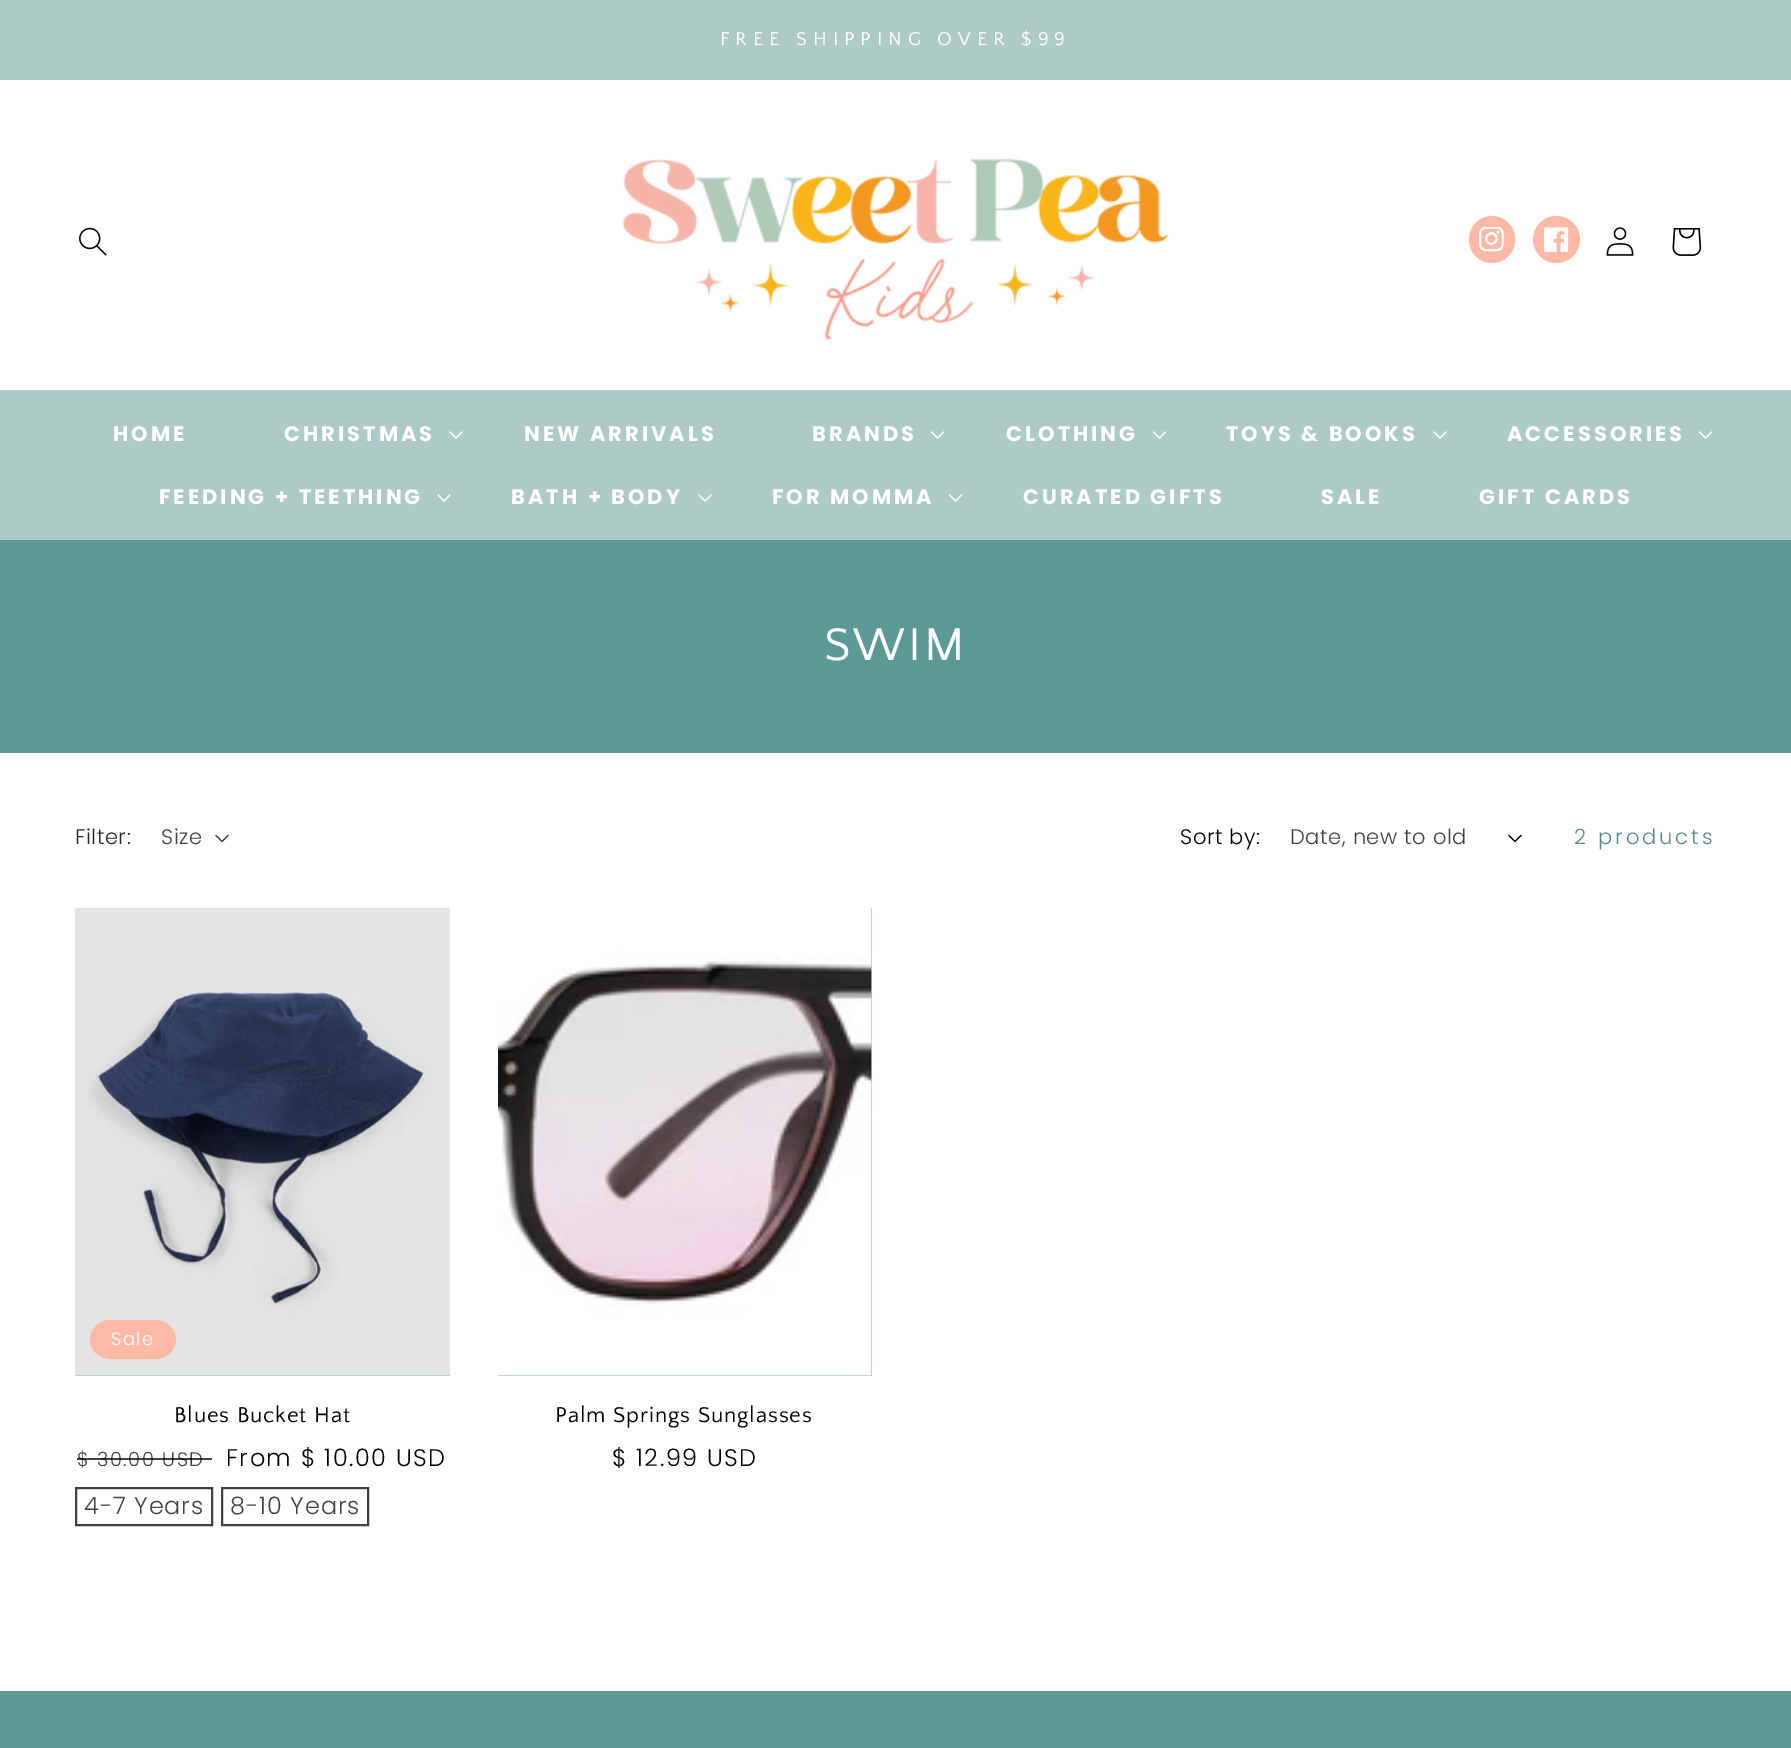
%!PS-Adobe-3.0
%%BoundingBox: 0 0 1791 1748
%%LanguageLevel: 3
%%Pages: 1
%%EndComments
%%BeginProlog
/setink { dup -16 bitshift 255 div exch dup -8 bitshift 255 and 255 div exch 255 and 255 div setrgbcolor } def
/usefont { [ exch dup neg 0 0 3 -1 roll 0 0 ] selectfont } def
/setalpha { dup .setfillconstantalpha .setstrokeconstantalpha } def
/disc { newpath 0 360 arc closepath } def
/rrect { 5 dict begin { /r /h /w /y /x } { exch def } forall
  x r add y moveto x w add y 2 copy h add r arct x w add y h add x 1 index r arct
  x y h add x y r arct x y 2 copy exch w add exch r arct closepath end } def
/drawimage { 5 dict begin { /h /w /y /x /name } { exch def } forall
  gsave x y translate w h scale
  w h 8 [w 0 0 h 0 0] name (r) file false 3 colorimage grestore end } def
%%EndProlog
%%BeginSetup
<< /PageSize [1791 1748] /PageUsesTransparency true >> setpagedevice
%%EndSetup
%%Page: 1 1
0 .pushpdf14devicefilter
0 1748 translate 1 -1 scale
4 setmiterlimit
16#FFFFFF setink
0 0 1791 1748 rectfill
16#AECAC6 setink
0 0 1791 80 rectfill
/QuattrocentoSans-Regular 19.5 usefont
16#FFFFFF setink
720 45 moveto 6 0 (FREE SHIPPING OVER $99) ashow
(img1.raw) 79 227 28 29 drawimage
(img2.raw) 622 158 547 183 drawimage
16#FDB9A5 setink
1469 216 46 47 23 rrect fill
(img3.raw) 1479 227 25 25 drawimage
1556.5 239.5 23.5 disc fill
(img4.raw) 1544 227 25 25 drawimage
(img5.raw) 1606 227 28 29 drawimage
(img6.raw) 1672 228 30 28 drawimage
16#AECAC6 setink
0 390 1791 150 rectfill
/Poppins-Bold 21 usefont
16#FFFFFF setink
113 441 moveto 3 0 (HOME) ashow
284 441 moveto 3 0 (CHRISTMAS) ashow
(img7.raw) 449 431 14 8 drawimage
524 441 moveto 3 0 (NEW ARRIVALS) ashow
812 441 moveto 3 0 (BRANDS) ashow
(img8.raw) 930 431 15 8 drawimage
1006 441 moveto 3 0 (CLOTHING) ashow
(img8.raw) 1152 431 15 8 drawimage
1226 441 moveto 3 0 (TOYS & BOOKS) ashow
(img7.raw) 1433 431 14 8 drawimage
1507 441 moveto 3 0 (ACCESSORIES) ashow
(img8.raw) 1698 431 15 8 drawimage
159 504 moveto 3 0 (FEEDING + TEETHING) ashow
(img7.raw) 437 494 14 8 drawimage
511 504 moveto 3 0 (BATH + BODY) ashow
(img7.raw) 698 494 14 8 drawimage
772 504 moveto 3 0 (FOR MOMMA) ashow
(img8.raw) 948 494 15 8 drawimage
1023 504 moveto 3 0 (CURATED GIFTS) ashow
1321 504 moveto 3 0 (SALE) ashow
1479 504 moveto 3 0 (GIFT CARDS) ashow
16#5B9994 setink
0 540 1791 213 rectfill
/QuattrocentoSans-Regular 48 usefont
16#FFFFFF setink
824 660 moveto 3 0 (SWIM) ashow
/Poppins-Light 21 usefont
16#262626 setink
75 844 moveto 0.6 0 (Filter:) ashow
16#404040 setink
161 844 moveto 0.6 0 (Size) ashow
(img9.raw) 215 834 14 9 drawimage
16#000000 setink
1180 844 moveto 0.6 0 (Sort by:) ashow
16#404040 setink
1290 844 moveto 0.6 0 (Date, new to old) ashow
(img10.raw) 1508 834 14 9 drawimage
16#588A86 setink
1574 844 moveto 3 0 (2 products) ashow
16#AECAC6 setink
75 1375 375 1 rectfill
(img11.raw) 75 907 375 469 drawimage
16#FDB9A5 setink
91 1321 84 37 18.5 rrect gsave fill grestore
2 setlinewidth
stroke
/Poppins-Light 18 usefont
16#FFFFFF setink
111 1345 moveto 1.5 0 (Sale) ashow
/QuattrocentoSans-Regular 22.5 usefont
16#000000 setink
174 1422 moveto 0.9 0 (Blues Bucket Hat) ashow
/Poppins-Light 19.5 usefont
16#404040 setink
77 1466 moveto 1.5 0 ($ 30.00 USD) ashow
0.75 setalpha
16#000000 setink
77 1458 135 2 rectfill
/Poppins-Light 24 usefont
1 setalpha
226 1466 moveto 1.5 0 (From $ 10.00 USD) ashow
16#3D4246 setink
76 1488 136 37 rectstroke
84 1514 moveto 0.9 0 (4-7 Years) ashow
222 1488 146 37 rectstroke
230 1514 moveto 0.9 0 (8-10 Years) ashow
16#AECAC6 setink
498 908 374 468 rectfill
(img12.raw) 498 908 374 468 drawimage
/QuattrocentoSans-Regular 22.5 usefont
16#000000 setink
555 1422 moveto 0.9 0 (Palm Springs Sunglasses) ashow
/Poppins-Light 24 usefont
612 1466 moveto 1.5 0 ($ 12.99 USD) ashow
16#5B9994 setink
0 1691 1791 57 rectfill
.poppdf14devicefilter showpage
%%EOF
